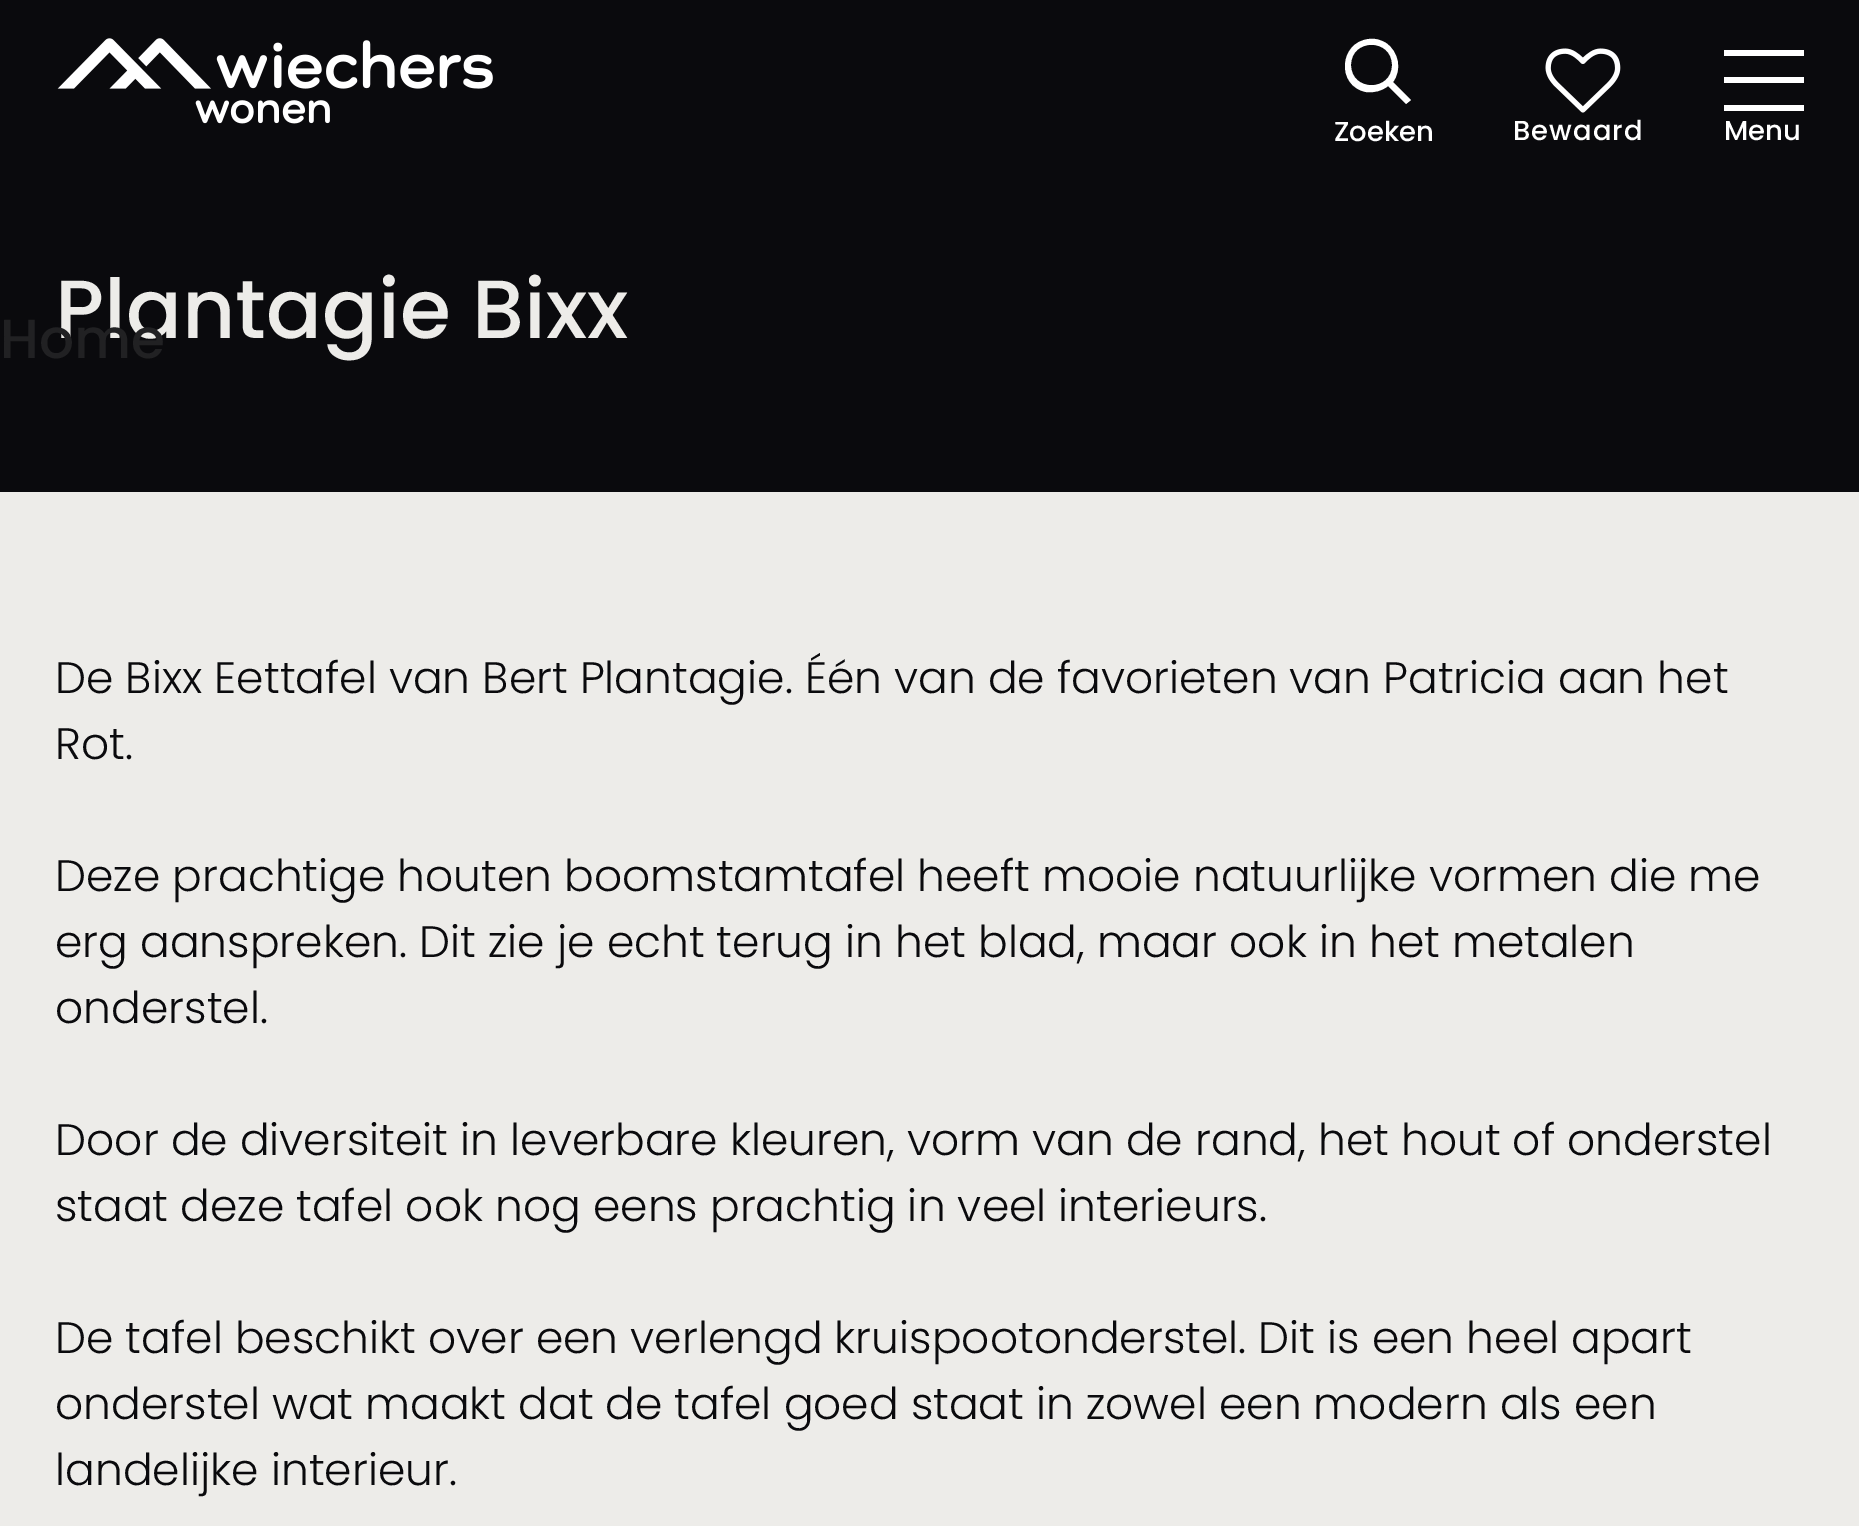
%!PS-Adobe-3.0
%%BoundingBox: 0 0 1859 1526
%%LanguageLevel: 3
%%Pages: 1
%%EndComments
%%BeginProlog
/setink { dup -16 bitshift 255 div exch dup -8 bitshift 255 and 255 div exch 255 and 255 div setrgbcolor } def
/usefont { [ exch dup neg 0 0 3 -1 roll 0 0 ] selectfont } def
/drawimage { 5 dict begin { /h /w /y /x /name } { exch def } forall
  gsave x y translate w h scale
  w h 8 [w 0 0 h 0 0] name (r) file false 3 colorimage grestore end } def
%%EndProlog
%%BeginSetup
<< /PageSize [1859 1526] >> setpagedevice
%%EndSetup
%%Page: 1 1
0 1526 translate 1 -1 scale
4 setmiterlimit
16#EDECE9 setink
0 0 1859 1526 rectfill
16#0A0A0D setink
0 0 1859 492 rectfill
(img1.raw) 1545 48 76 65 drawimage
/Poppins-Medium 27.5 usefont
16#FFFFFF setink
1513 140 moveto 1 0 (Bewaard) ashow
(img2.raw) 57 38 436 86 drawimage
[
    [1724 50 80 6 16#FFFFFF]
    [1724 77 80 6 16#FFFFFF]
    [1724 105 80 6 16#FFFFFF]
] { aload pop setink rectfill } forall
1724 140 moveto (Menu) show
/Poppins-Medium 82.5 usefont
16#EDECE9 setink
55 338 moveto (Plantagie Bixx) show
/Poppins-Medium 55 usefont
16#212123 setink
0 358 moveto (Home) show
16#FFFFFF setink
1392 65 moveto 1392 38 1351 38 1351 65 curveto 1351 92 1392 92 1392 65 curveto closepath 1388 86 moveto 1382 91 1374 93 1366 92 curveto 1336 86 1339 42 1369 39 curveto 1375 38 1381 40 1386 43 curveto 1399 52 1402 70 1393 82 curveto 1411 100 lineto 1406 104 lineto closepath fill
/Poppins-Medium 27.5 usefont
1334 141 moveto (Zoeken) show
/Poppins-Light 44 usefont
16#0A0A0D setink
[
    [(De Bixx Eettafel van Bert Plantagie. Één van de favorieten van Patricia aan het) 55 693]
    [(Rot.) 55 759]
    [(Deze prachtige houten boomstamtafel heeft mooie natuurlijke vormen die me) 55 891]
    [(erg aanspreken. Dit zie je echt terug in het blad, maar ook in het metalen) 55 957]
    [(onderstel.) 55 1023]
    [(Door de diversiteit in leverbare kleuren, vorm van de rand, het hout of onderstel) 55 1155]
    [(staat deze tafel ook nog eens prachtig in veel interieurs.) 55 1221]
    [(De tafel beschikt over een verlengd kruispootonderstel. Dit is een heel apart) 55 1353]
    [(onderstel wat maakt dat de tafel goed staat in zowel een modern als een) 55 1419]
    [(landelijke interieur.) 55 1485]
] { aload pop moveto show } forall
showpage
%%EOF
